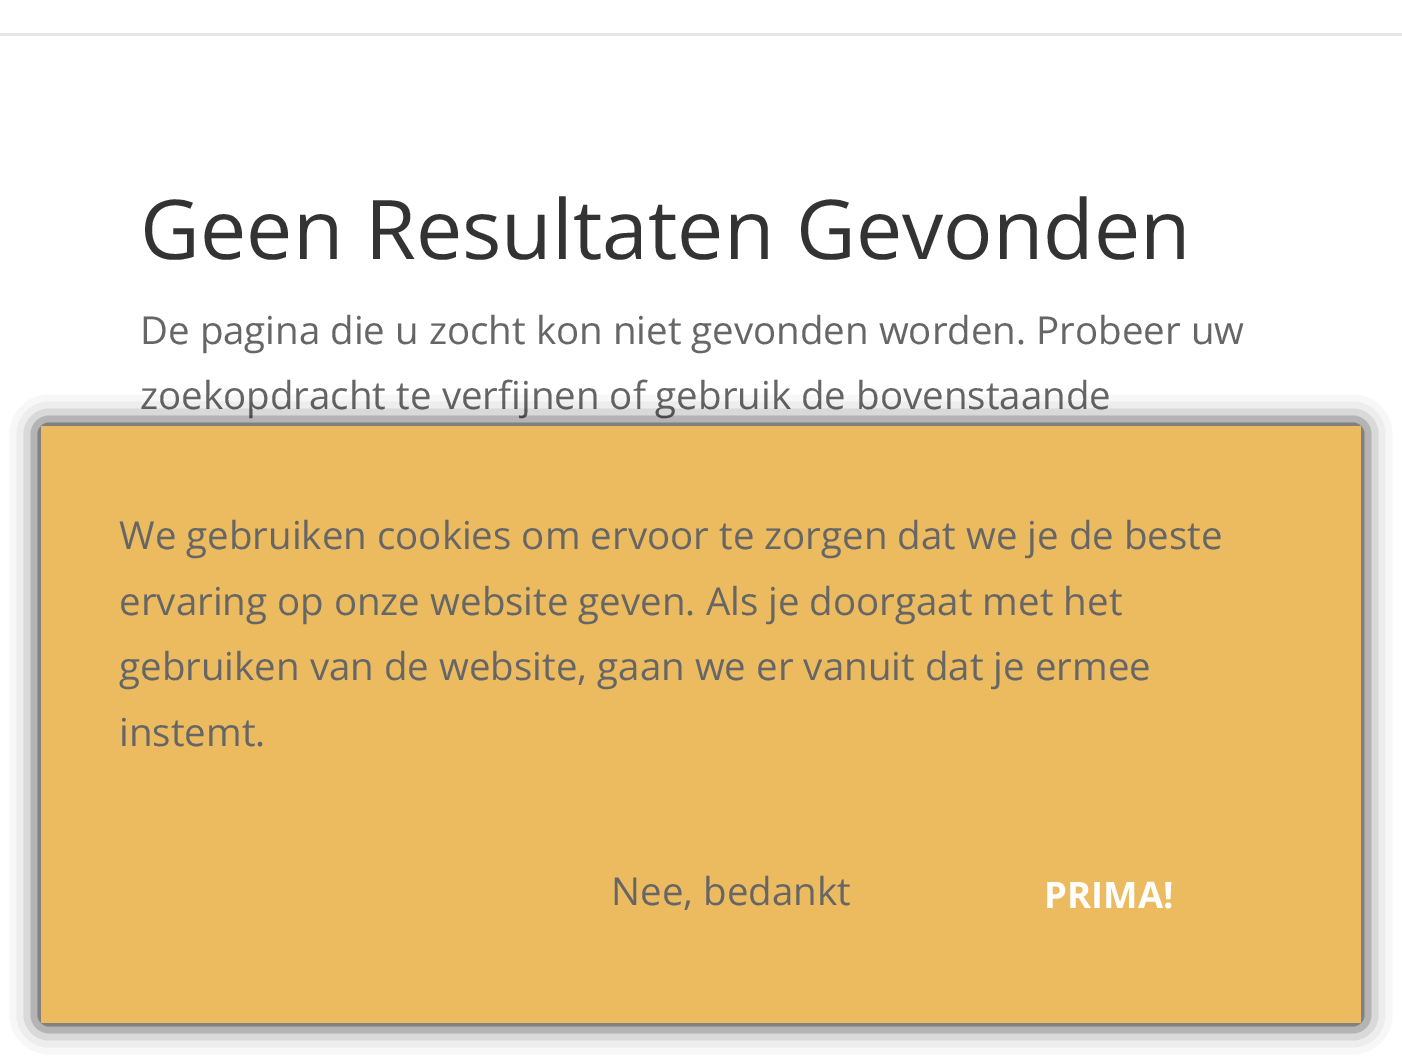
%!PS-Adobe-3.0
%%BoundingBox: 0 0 1402 1061
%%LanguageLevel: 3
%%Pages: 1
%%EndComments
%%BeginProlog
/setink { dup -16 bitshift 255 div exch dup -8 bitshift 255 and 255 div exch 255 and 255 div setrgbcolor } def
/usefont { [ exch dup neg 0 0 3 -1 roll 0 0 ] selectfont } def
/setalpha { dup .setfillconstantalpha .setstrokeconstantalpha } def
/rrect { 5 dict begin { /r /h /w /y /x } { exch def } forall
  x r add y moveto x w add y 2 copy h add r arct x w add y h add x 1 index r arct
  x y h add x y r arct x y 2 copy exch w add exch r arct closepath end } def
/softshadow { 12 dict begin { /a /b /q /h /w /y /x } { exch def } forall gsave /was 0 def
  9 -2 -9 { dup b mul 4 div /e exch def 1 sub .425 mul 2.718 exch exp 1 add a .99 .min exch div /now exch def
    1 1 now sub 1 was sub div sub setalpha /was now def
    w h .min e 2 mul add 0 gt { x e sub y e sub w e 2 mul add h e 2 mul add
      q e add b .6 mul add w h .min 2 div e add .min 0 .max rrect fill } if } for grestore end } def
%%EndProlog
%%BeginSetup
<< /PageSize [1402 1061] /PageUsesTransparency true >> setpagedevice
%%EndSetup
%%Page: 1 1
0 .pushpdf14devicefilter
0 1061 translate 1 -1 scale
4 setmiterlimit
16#FFFFFF setink
0 0 1402 1061 rectfill
16#E6E6E6 setink
0 33 moveto 0 36 lineto 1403 36 lineto 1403 -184 lineto 1402 -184 lineto 1402 33 lineto closepath fill
/OpenSans-Regular 82.5 usefont
16#333333 setink
140 259 moveto (Geen Resultaten Gevonden) show
/OpenSans-Regular 38.5 usefont
16#666666 setink
140 344 moveto (De pagina die u zocht kon niet gevonden worden. Probeer uw) show
140 409 moveto (zoekopdracht te verfijnen of gebruik de bovenstaande) show
16#000000 setink
41 426 1320 597 0 14 1 softshadow
16#EDBB5F setink
41 426 1320 597 rectfill
16#666666 setink
[
    [(We gebruiken cookies om ervoor te zorgen dat we je de beste) 119 549]
    [(ervaring op onze website geven. Als je doorgaat met het) 119 615]
    [(gebruiken van de website, gaan we er vanuit dat je ermee) 119 680]
    [(instemt.) 119 746]
    [(Nee, bedankt) 611 905]
] { aload pop moveto show } forall
/OpenSans-Bold 36.5 usefont
16#FFFFFF setink
1044 908 moveto (PRIMA!) show
.poppdf14devicefilter showpage
%%EOF
